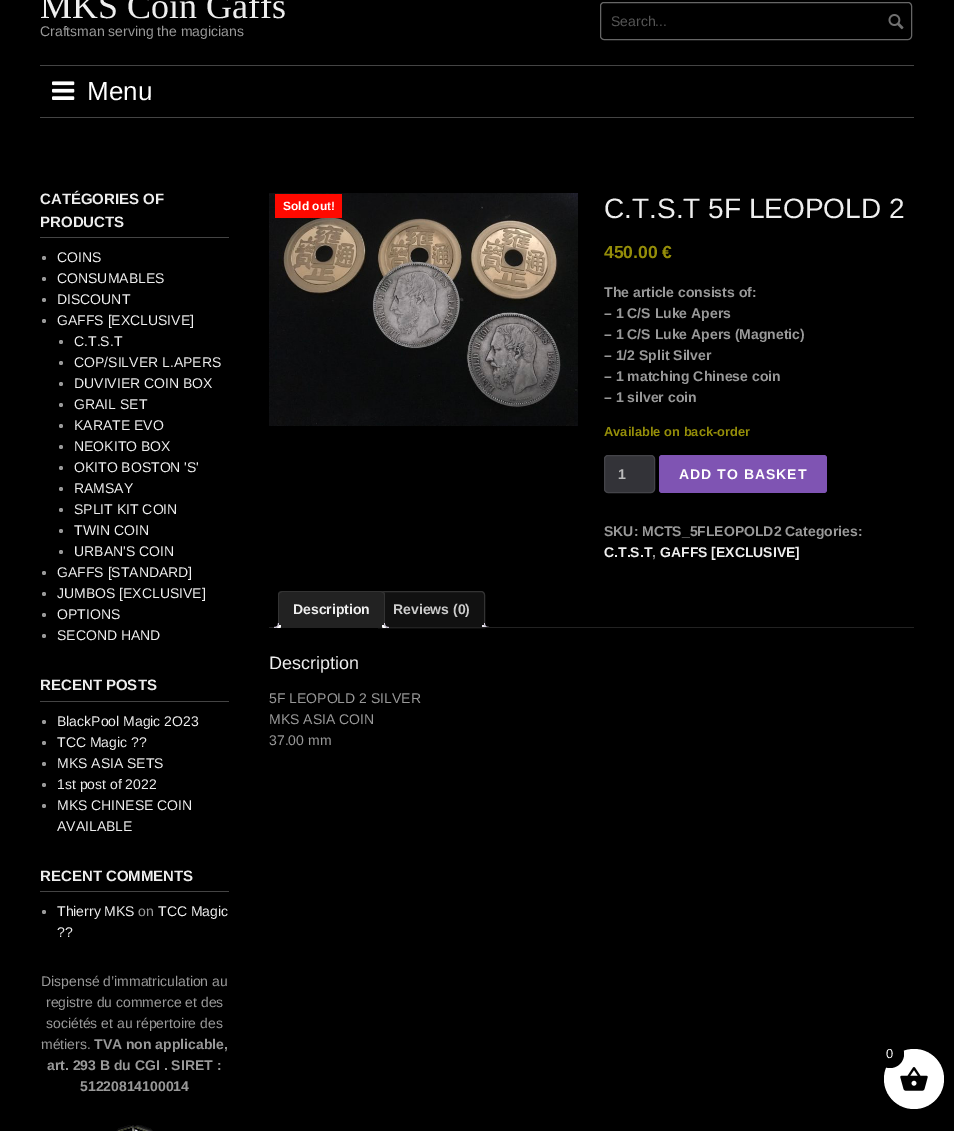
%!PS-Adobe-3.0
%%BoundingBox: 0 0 954 1131
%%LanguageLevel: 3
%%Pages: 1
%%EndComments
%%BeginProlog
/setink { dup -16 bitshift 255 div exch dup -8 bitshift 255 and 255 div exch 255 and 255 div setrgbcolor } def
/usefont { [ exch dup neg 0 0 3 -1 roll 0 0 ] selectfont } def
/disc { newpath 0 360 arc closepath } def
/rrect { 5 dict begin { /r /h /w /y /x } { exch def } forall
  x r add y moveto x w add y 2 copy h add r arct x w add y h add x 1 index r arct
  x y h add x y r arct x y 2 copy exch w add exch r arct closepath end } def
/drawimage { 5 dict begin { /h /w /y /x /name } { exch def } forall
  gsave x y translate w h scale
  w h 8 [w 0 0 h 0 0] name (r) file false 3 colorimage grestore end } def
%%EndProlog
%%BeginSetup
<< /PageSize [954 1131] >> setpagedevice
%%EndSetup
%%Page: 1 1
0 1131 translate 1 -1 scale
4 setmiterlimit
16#000000 setink
0 0 954 1131 rectfill
/LiberationSerif-Regular 36 usefont
16#EEEEEE setink
40 18 moveto (MKS Coin Gaffs) show
/LiberationSans-Regular 14 usefont
16#999999 setink
40 36 moveto (Craftsman serving the magicians) show
16#666666 setink
600.5 2.5 311 37 3.5 rrect stroke
16#555555 setink
611 26 moveto (Search...) show
(img1.raw) 888 14 16 16 drawimage
16#444444 setink
40 65 874 1 rectfill
40 117 874 1 rectfill
(img2.raw) 52 81 23 19 drawimage
/LiberationSans-Regular 26 usefont
16#FFFFFF setink
87 100 moveto (Menu) show
16#444444 setink
40 237 189 1 rectfill
/LiberationSans-Bold 15 usefont
16#EEEEEE setink
40 204 moveto (CATÉGORIES OF) show
40 227 moveto (PRODUCTS) show
16#999999 setink
44 258 2 disc fill
/LiberationSans-Regular 14 usefont
16#EEEEEE setink
57 262 moveto (COINS) show
16#999999 setink
44 279 2 disc fill
16#EEEEEE setink
57 283 moveto (CONSUMABLES) show
16#999999 setink
44 300 2 disc fill
16#EEEEEE setink
57 304 moveto (DISCOUNT) show
16#999999 setink
44 321 2 disc fill
16#EEEEEE setink
57 325 moveto (GAFFS [EXCLUSIVE]) show
16#999999 setink
61 342 2 disc fill
16#EEEEEE setink
74 346 moveto (C.T.S.T) show
16#999999 setink
61 363 2 disc fill
16#EEEEEE setink
74 367 moveto (COP/SILVER L.APERS) show
16#999999 setink
61 384 2 disc fill
16#EEEEEE setink
74 388 moveto (DUVIVIER COIN BOX) show
16#999999 setink
61 405 2 disc fill
16#EEEEEE setink
74 409 moveto (GRAIL SET) show
16#999999 setink
61 426 2 disc fill
16#EEEEEE setink
74 430 moveto (KARATE EVO) show
16#999999 setink
61 447 2 disc fill
16#EEEEEE setink
74 451 moveto (NEOKITO BOX) show
16#999999 setink
61 468 2 disc fill
16#EEEEEE setink
74 472 moveto (OKITO BOSTON 'S') show
16#999999 setink
61 489 2 disc fill
16#EEEEEE setink
74 493 moveto (RAMSAY) show
16#999999 setink
61 510 2 disc fill
16#EEEEEE setink
74 514 moveto (SPLIT KIT COIN) show
16#999999 setink
61 531 2 disc fill
16#EEEEEE setink
74 535 moveto (TWIN COIN) show
16#999999 setink
61 552 2 disc fill
16#EEEEEE setink
74 556 moveto (URBAN'S COIN) show
16#999999 setink
44 573 2 disc fill
16#EEEEEE setink
57 577 moveto (GAFFS [STANDARD]) show
16#999999 setink
44 594 2 disc fill
16#EEEEEE setink
57 598 moveto (JUMBOS [EXCLUSIVE]) show
16#999999 setink
44 615 2 disc fill
16#EEEEEE setink
57 619 moveto (OPTIONS) show
16#999999 setink
44 636 2 disc fill
16#EEEEEE setink
57 640 moveto (SECOND HAND) show
16#444444 setink
40 701 189 1 rectfill
/LiberationSans-Bold 15 usefont
16#EEEEEE setink
40 690 moveto (RECENT POSTS) show
16#999999 setink
44 722 2 disc fill
/LiberationSans-Regular 14 usefont
16#EEEEEE setink
57 726 moveto (BlackPool Magic 2O23) show
16#999999 setink
44 743 2 disc fill
16#EEEEEE setink
57 747 moveto (TCC Magic ??) show
16#999999 setink
44 764 2 disc fill
16#EEEEEE setink
57 768 moveto (MKS ASIA SETS) show
16#999999 setink
44 785 2 disc fill
16#EEEEEE setink
57 789 moveto (1st post of 2022) show
16#999999 setink
44 806 2 disc fill
16#EEEEEE setink
57 810 moveto (MKS CHINESE COIN) show
57 831 moveto (AVAILABLE) show
16#444444 setink
40 891 189 1 rectfill
/LiberationSans-Bold 15 usefont
16#EEEEEE setink
40 881 moveto (RECENT COMMENTS) show
16#999999 setink
44 912 2 disc fill
/LiberationSans-Regular 14 usefont
16#EEEEEE setink
57 916 moveto (Thierry MKS) show
16#999999 setink
138 916 moveto (on) show
16#EEEEEE setink
158 916 moveto (TCC Magic) show
57 937 moveto (??) show
16#999999 setink
[
    [(Dispensé d’immatriculation au) 41 986]
    [(registre du commerce et des) 46 1007]
    [(sociétés et au répertoire des) 46 1028]
    [(métiers.) 41 1049]
] { aload pop moveto show } forall
/LiberationSans-Bold 14 usefont
[
    [(TVA non applicable,) 94 1049]
    [(art. 293 B du CGI . SIRET :) 47 1070]
    [(51220814100014) 80 1091]
] { aload pop moveto show } forall
(img3.raw) 116 1125 37 6 drawimage
(img4.raw) 269 193 309 233 drawimage
/LiberationSans-Regular 28 usefont
16#EEEEEE setink
604 218 moveto (C.T.S.T 5F LEOPOLD 2) show
/LiberationSans-Bold 17.5 usefont
16#958E09 setink
604 258 moveto (450.00 €) show
/LiberationSans-Bold 14 usefont
16#999999 setink
[
    [(The article consists of:) 604 297]
    [(– 1 C/S Luke Apers) 604 318]
    [(– 1 C/S Luke Apers \(Magnetic\)) 604 339]
    [(– 1/2 Split Silver) 604 360]
    [(– 1 matching Chinese coin) 604 381]
    [(– 1 silver coin) 604 402]
] { aload pop moveto show } forall
/LiberationSans-Bold 12.9 usefont
16#958E09 setink
604 436 moveto (Available on back-order) show
16#333338 setink
604.5 455.5 50 37 3.5 rrect gsave fill grestore
16#444449 setink
stroke
/LiberationSans-Bold 14 usefont
16#BBBBBB setink
618 479 moveto (1) show
16#7F54B3 setink
659 455 168 38 3 rrect fill
16#FFFFFF setink
679 479 moveto 1 0 (ADD TO BASKET) ashow
16#999999 setink
604 536 moveto (SKU: MCTS_5FLEOPOLD2 Categories:) show
16#EEEEEE setink
604 557 moveto (C.T.S.T) show
16#999999 setink
652 557 moveto (,) show
16#EEEEEE setink
660 557 moveto (GAFFS [EXCLUSIVE]) show
16#FF0900 setink
275 194 67 24 rectfill
/LiberationSans-Bold 12 usefont
16#FFFFFF setink
283 210 moveto (Sold out!) show
16#111111 setink
382 591.5 moveto 481 591.5 lineto 483 591.5 484.5 593 484.5 595 curveto 484.5 627.5 lineto 378.5 627.5 lineto 378.5 595 lineto 378.5 593 380 591.5 382 591.5 curveto closepath gsave fill grestore
16#333333 setink
stroke
gsave
269 591 645 37 rectclip
16#E9E6ED setink
482 625 moveto 482 628.5 483.5 630 487 630 curveto 487 628 lineto 485.5 627.5 484.5 626.5 484 625 curveto closepath fill
grestore
16#CFC8D8 setink
484 623 moveto 489 623 lineto 489 628 lineto 486.5 628 484 627 484 624 curveto closepath 485 623 moveto 489 623 lineto 489 627 lineto 487 627 485 626.5 485 624 curveto closepath eofill
16#222222 setink
269 627 645 1 rectfill
282 591 moveto 381 591 lineto 383 591 385 593 385 595 curveto 385 628 lineto 278 628 lineto 278 595 lineto 278 593 280 591 282 591 curveto closepath fill
16#333333 setink
282 591 moveto 279 592 lineto 280 593 lineto 282 592 lineto 381 592 lineto 383 593 lineto 384 592 lineto 381 591 lineto closepath fill
385 628 moveto 385 595 lineto 385 594 384.5 593 384 592 curveto 383 593 lineto 384 593 384 594 384 595 curveto 384 627 lineto closepath fill
16#222222 setink
385 628 moveto 384 627 lineto 279 627 lineto 278 628 lineto closepath fill
16#333333 setink
278 628 moveto 279 627 lineto 279 595 lineto 279 594 279 593 280 593 curveto 279 592 lineto 278.5 593 278 594 278 595 curveto closepath fill
/LiberationSans-Bold 14 usefont
16#EEEEEE setink
293 614 moveto (Description) show
gsave
269 591 645 37 rectclip
16#FFFFFF setink
276 628 moveto 276 630 lineto 279.5 630 281 628.5 281 625 curveto 279 625 lineto 278.5 626.5 277.5 627.5 276 628 curveto closepath fill
grestore
16#CFC8D8 setink
274 623 moveto 279 623 lineto 279 626.5 277.5 628 274 628 curveto closepath 274 623 moveto 278 623 lineto 278 626 277 627 274 627 curveto closepath eofill
gsave
269 591 645 37 rectclip
16#FFFFFF setink
382 625 moveto 382 628.5 383.5 630 387 630 curveto 387 628 lineto 385.5 627.5 384.5 626.5 384 625 curveto closepath fill
grestore
384 623 moveto 389 623 lineto 389 628 lineto 386.5 628 384 627 384 624 curveto closepath 385 623 moveto 389 623 lineto 389 627 lineto 387 627 385 626.5 385 624 curveto closepath eofill
16#CCCCCC setink
393 614 moveto (Reviews \(0\)) show
/LiberationSans-Regular 18 usefont
16#EEEEEE setink
269 669 moveto (Description) show
/LiberationSans-Regular 14 usefont
16#999999 setink
[
    [(5F LEOPOLD 2 SILVER) 269 703]
    [(MKS ASIA COIN) 269 724]
    [(37.00 mm) 269 745]
] { aload pop moveto show } forall
16#FFFFFF setink
914 1079 30 disc fill
(img5.raw) 900 1067 28 24 drawimage
16#000000 setink
890 1054 14 disc fill
/LiberationSans-Regular 13 usefont
16#FFFFFF setink
886 1058 moveto (0) show
showpage
%%EOF
